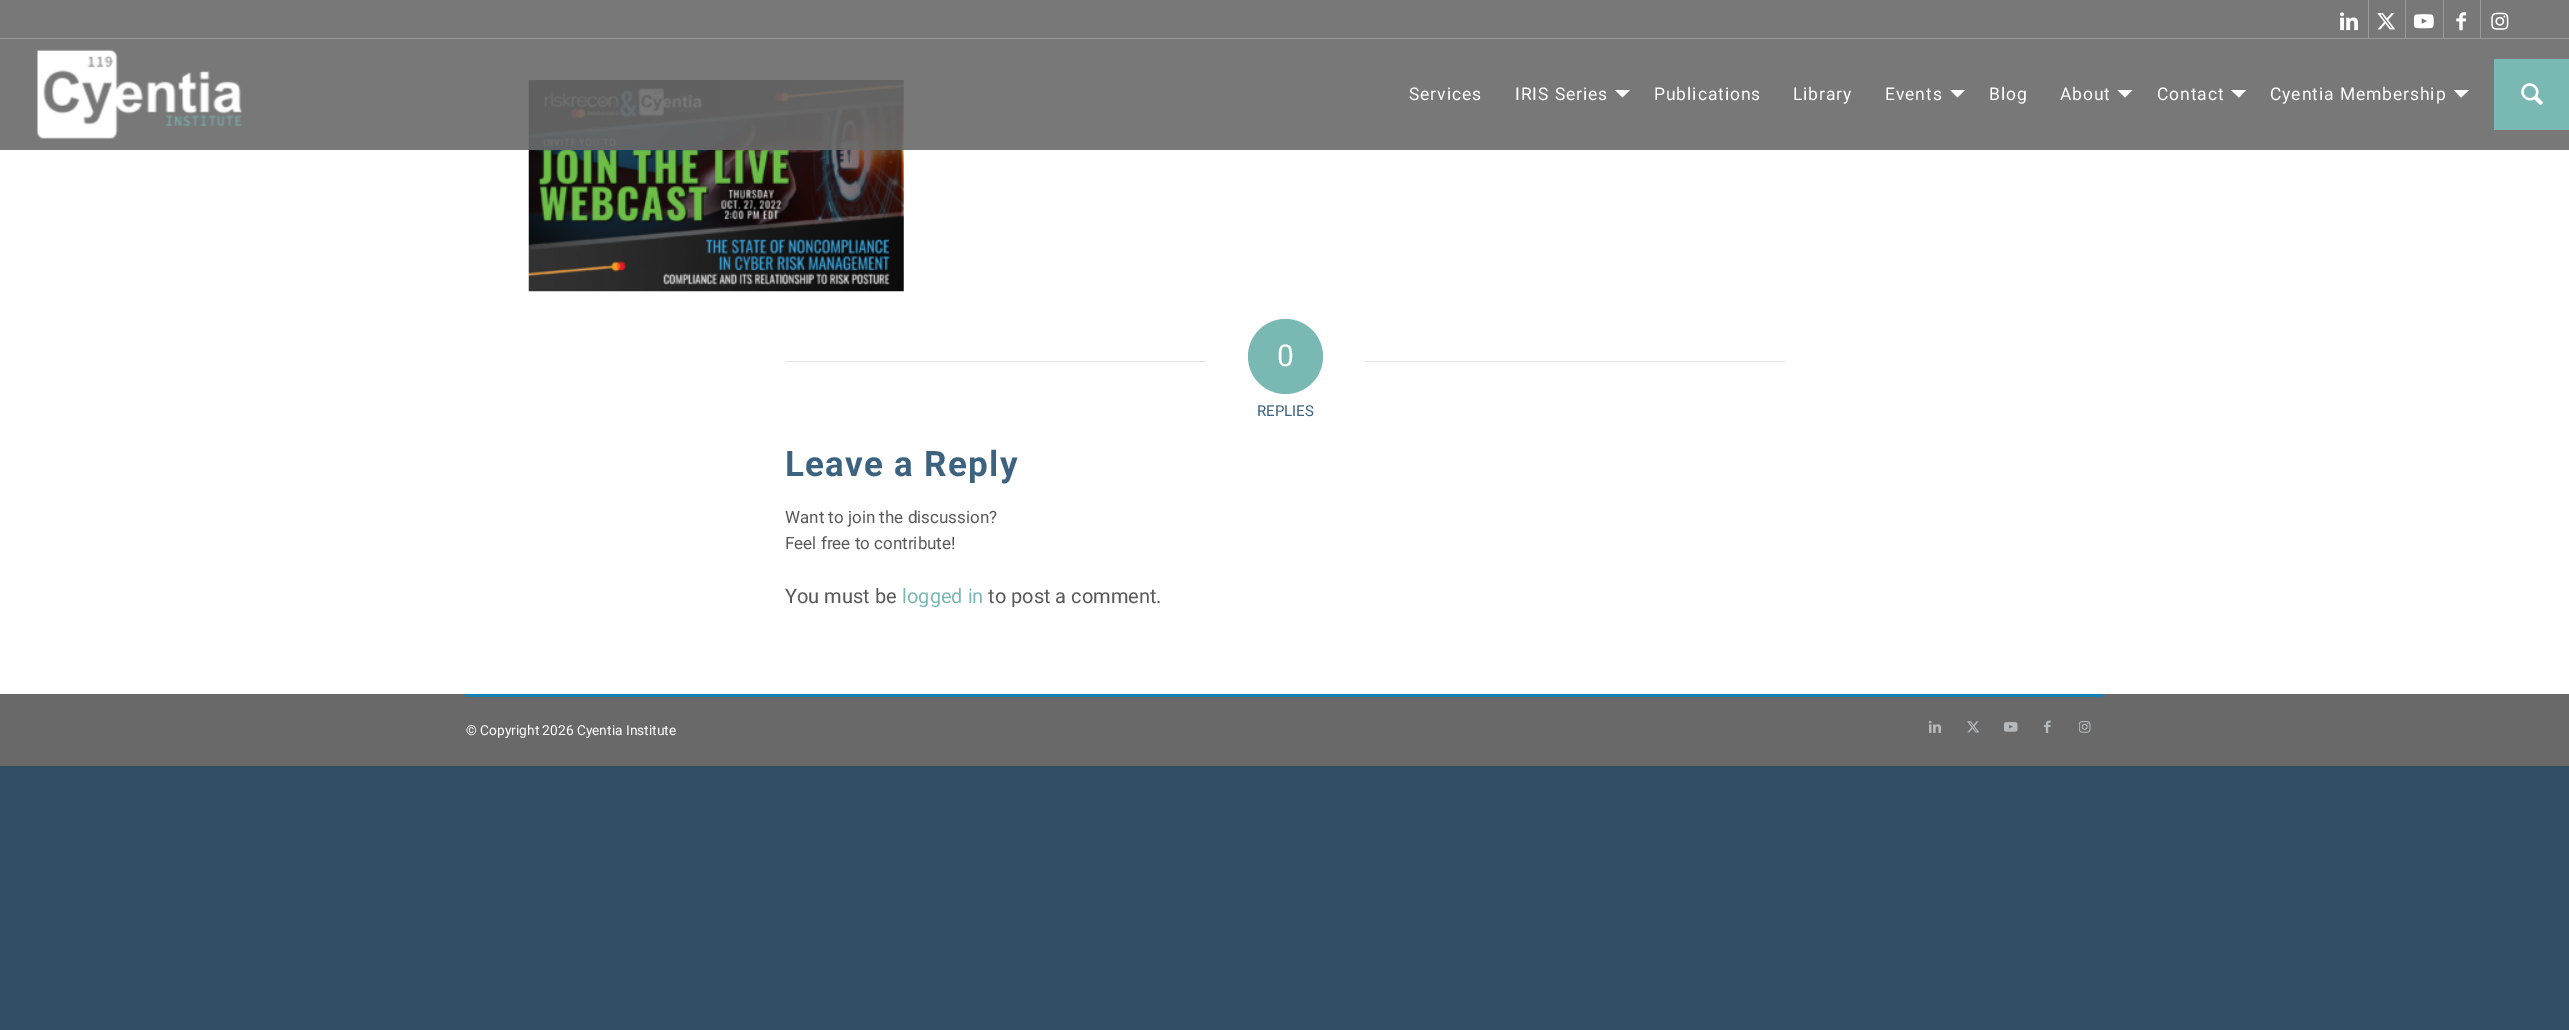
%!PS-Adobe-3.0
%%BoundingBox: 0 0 2569 1030
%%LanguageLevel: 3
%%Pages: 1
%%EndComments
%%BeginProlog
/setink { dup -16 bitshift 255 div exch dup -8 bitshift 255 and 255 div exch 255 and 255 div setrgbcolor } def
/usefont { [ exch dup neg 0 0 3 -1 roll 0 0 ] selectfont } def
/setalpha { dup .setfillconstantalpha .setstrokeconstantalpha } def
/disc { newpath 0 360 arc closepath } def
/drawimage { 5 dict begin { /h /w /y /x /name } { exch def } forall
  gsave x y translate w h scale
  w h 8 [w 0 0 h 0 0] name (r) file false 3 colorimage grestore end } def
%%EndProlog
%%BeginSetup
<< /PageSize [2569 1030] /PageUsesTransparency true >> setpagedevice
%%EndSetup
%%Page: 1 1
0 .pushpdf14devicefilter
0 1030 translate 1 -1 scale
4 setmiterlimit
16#2F4D63 setink
0 0 2569 1030 rectfill
16#FFFFFF setink
0 0 2569 694 rectfill
(img8.raw) 528 80 376 212 drawimage
0.9 setalpha
[
    [0 0 2569 150 16#696969]
] { aload pop setink rectfill } forall
1 setalpha
[
    [0 38 2569 1 16#9A9A9A]
    [2368 0 1 38 16#9A9A9A]
] { aload pop setink rectfill } forall
(img1.raw) 2340 12 18 19 drawimage
2405 0 1 38 rectfill
(img2.raw) 2377 13 19 17 drawimage
2443 0 1 38 rectfill
(img3.raw) 2414 14 20 15 drawimage
2480 0 1 38 rectfill
(img4.raw) 2456 12 10 19 drawimage
(img5.raw) 2491 12 18 18 drawimage
(img6.raw) 37 49 205 90 drawimage
/Roboto-Regular 17.5 usefont
16#FFFFFF setink
1409 100 moveto 0.9 0 (Services) ashow
1515 100 moveto 0.9 0 (IRIS Series) ashow
1615 90 moveto 1630 90 lineto 1622.5 97.5 lineto closepath fill
1654 100 moveto 0.9 0 (Publications) ashow
1793 100 moveto 0.9 0 (Library) ashow
1885 100 moveto 0.9 0 (Events) ashow
1950 90 moveto 1965 90 lineto 1957.5 97.5 lineto closepath fill
1989 100 moveto 0.9 0 (Blog) ashow
2060 100 moveto 0.9 0 (About) ashow
2117.5 90 moveto 2132.5 90 lineto 2125 97.5 lineto closepath fill
2157 100 moveto 0.9 0 (Contact) ashow
2231 90 moveto 2246 90 lineto 2239 97.5 lineto closepath fill
2270 100 moveto 0.9 0 (Cyentia Membership) ashow
2454 90 moveto 2469 90 lineto 2461 97.5 lineto closepath fill
16#79B8B3 setink
2494 59 75 71 rectfill
(img7.raw) 2521 83 22 22 drawimage
16#696969 setink
0 694 2569 72 rectfill
16#E1E1E1 setink
785 361 420 1 rectfill
16#79B8B3 setink
1285.5 356.5 37.5 disc fill
/Roboto-Regular 30 usefont
16#FFFFFF setink
1277 366 moveto (0) show
16#E1E1E1 setink
1365 361 420 1 rectfill
/Roboto-Regular 15 usefont
16#3C6280 setink
1257 416 moveto (REPLIES) show
/Roboto-Bold 35 usefont
785 476 moveto 1.25 0 (Leave a Reply) ashow
/Roboto-Regular 17 usefont
16#595959 setink
785 523 moveto (Want to join the discussion?) show
785 549 moveto (Feel free to contribute!) show
/Roboto-Regular 20 usefont
785 603 moveto (You must be) show
16#79B8B3 setink
902 603 moveto (logged in) show
16#595959 setink
988 603 moveto (to post a comment.) show
16#1781B4 setink
466 694 1638 3 rectfill
/Roboto-Regular 13.75 usefont
16#FFFFFF setink
466 735 moveto (© Copyright 2026 Cyentia Institute) show
(img9.raw) 1929 720 12 13 drawimage
(img10.raw) 1967 721 13 12 drawimage
(img11.raw) 2004 722 14 10 drawimage
(img12.raw) 2044 720 7 14 drawimage
(img13.raw) 2079 721 12 12 drawimage
.poppdf14devicefilter showpage
%%EOF
